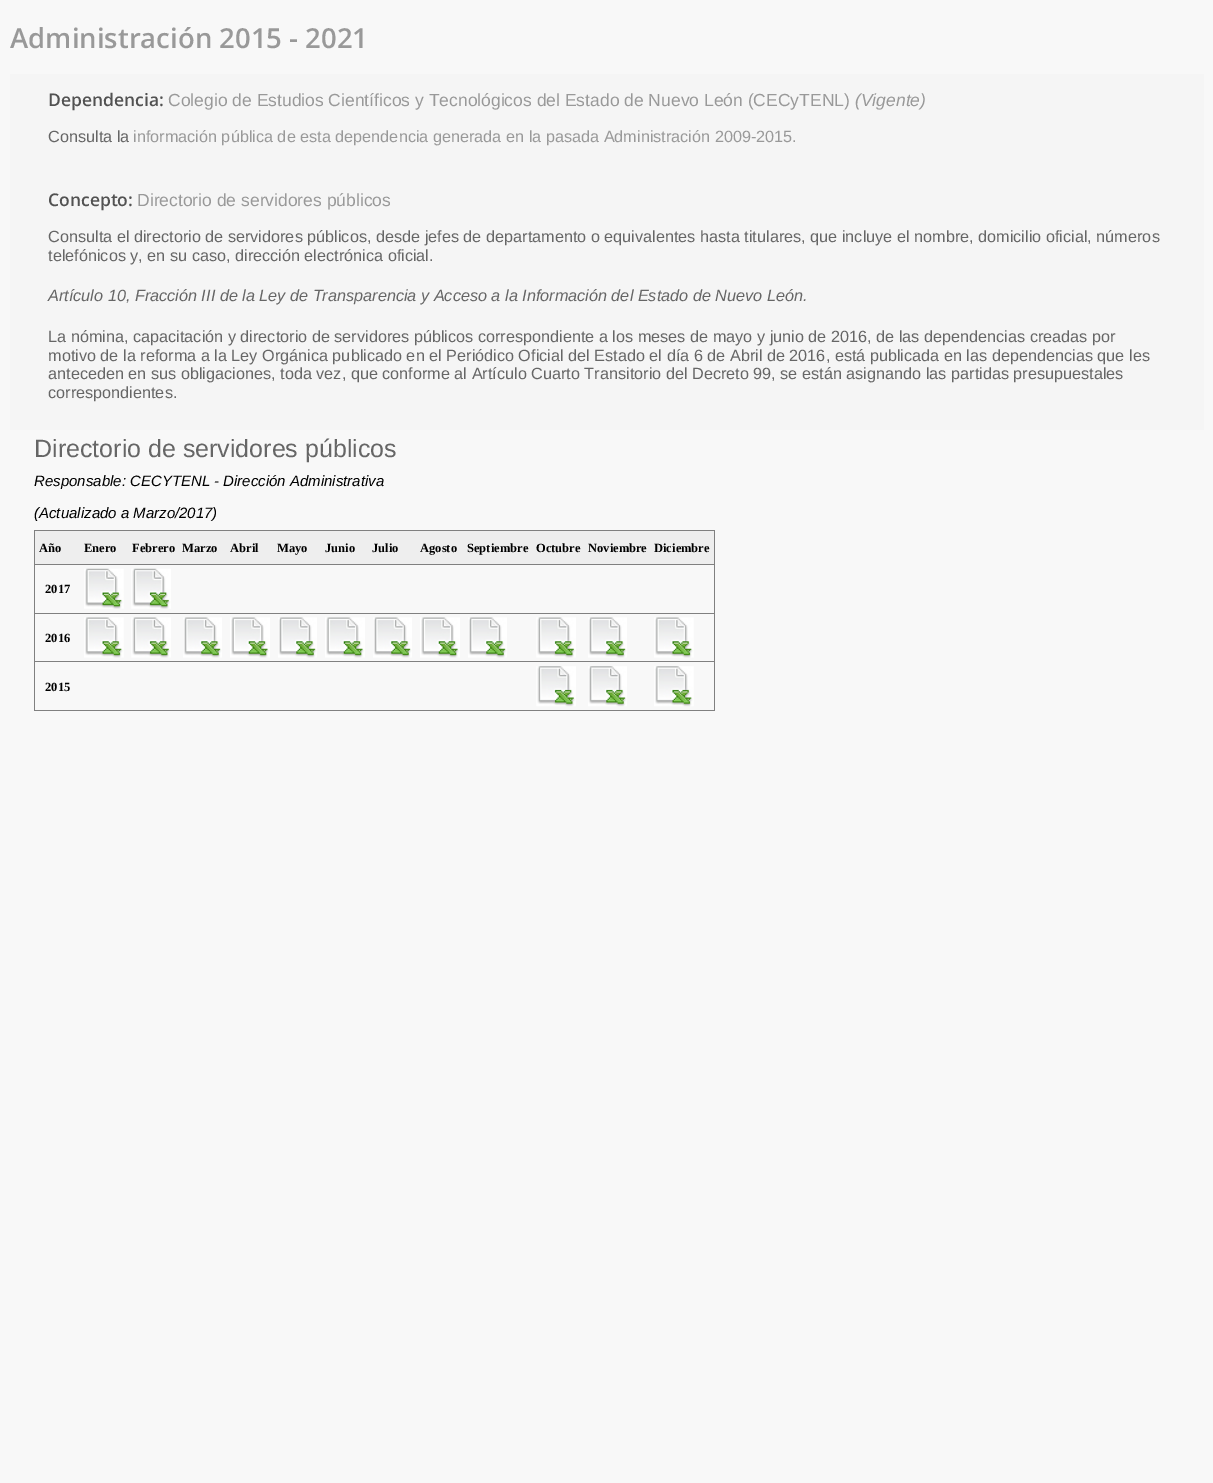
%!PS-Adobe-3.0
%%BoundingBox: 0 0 1213 1483
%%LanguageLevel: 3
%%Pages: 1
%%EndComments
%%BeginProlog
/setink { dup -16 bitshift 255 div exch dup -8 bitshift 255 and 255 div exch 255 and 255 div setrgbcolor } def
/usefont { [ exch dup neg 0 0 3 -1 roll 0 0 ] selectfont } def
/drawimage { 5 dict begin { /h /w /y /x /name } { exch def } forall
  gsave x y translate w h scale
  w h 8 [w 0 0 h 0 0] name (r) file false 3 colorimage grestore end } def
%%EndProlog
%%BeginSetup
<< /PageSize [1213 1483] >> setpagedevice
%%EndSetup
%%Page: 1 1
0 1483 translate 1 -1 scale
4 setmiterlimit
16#F8F8F8 setink
0 0 1213 1483 rectfill
/OpenSans-SemiBold 27.5 usefont
16#999999 setink
10 48 moveto (Administración 2015 - 2021) show
16#F5F5F5 setink
10 74 1194 356 rectfill
/OpenSans-SemiBold 17.5 usefont
16#525252 setink
48 106 moveto (Dependencia:) show
/LiberationSans-Regular 17.5 usefont
16#999999 setink
168 106 moveto (Colegio de Estudios Científicos y Tecnológicos del Estado de Nuevo León \(CECyTENL\)) show
/LiberationSans-Italic 17.5 usefont
855 106 moveto (\(Vigente\)) show
/LiberationSans-Regular 16.25 usefont
16#666666 setink
48 142 moveto (Consulta la) show
16#999999 setink
133 142 moveto (información pública de esta dependencia generada en la pasada Administración 2009-2015.) show
/OpenSans-SemiBold 17.5 usefont
16#525252 setink
48 206 moveto (Concepto:) show
/LiberationSans-Regular 17.5 usefont
16#999999 setink
137 206 moveto (Directorio de servidores públicos) show
/LiberationSans-Regular 16.25 usefont
16#666666 setink
48 242 moveto (Consulta el directorio de servidores públicos, desde jefes de departamento o equivalentes hasta titulares, que incluye el nombre, domicilio oficial, números) show
48 261 moveto (telefónicos y, en su caso, dirección electrónica oficial.) show
/LiberationSans-Italic 16.25 usefont
48 301 moveto (Artículo 10, Fracción III de la Ley de Transparencia y Acceso a la Información del Estado de Nuevo León.) show
/LiberationSans-Regular 16.25 usefont
[
    [(La nómina, capacitación y directorio de servidores públicos correspondiente a los meses de mayo y junio de 2016, de las dependencias creadas por) 48 342]
    [(motivo de la reforma a la Ley Orgánica publicado en el Periódico Oficial del Estado el día 6 de Abril de 2016, está publicada en las dependencias que les) 48 361]
    [(anteceden en sus obligaciones, toda vez, que conforme al Artículo Cuarto Transitorio del Decreto 99, se están asignando las partidas presupuestales) 48 379]
    [(correspondientes.) 48 398]
] { aload pop moveto show } forall
/LiberationSans-Regular 25 usefont
34 457 moveto (Directorio de servidores públicos) show
/LiberationSans-Italic 15 usefont
16#000000 setink
34 486 moveto (Responsable: CECYTENL - Dirección Administrativa) show
34 518 moveto (\(Actualizado a Marzo/2017\)) show
[
    [34 530 681 1 16#808080]
    [714 530 1 181 16#808080]
    [34 710 681 1 16#808080]
    [34 530 1 181 16#808080]
    [35 531 679 33 16#EEEEEE]
] { aload pop setink rectfill } forall
/LiberationSerif-Bold 12.5 usefont
16#000000 setink
[
    [(Año) 39 552]
    [(Enero) 84 552]
    [(Febrero) 132 552]
    [(Marzo) 182 552]
    [(Abril) 230 552]
    [(Mayo) 277 552]
    [(Junio) 325 552]
    [(Julio) 372 552]
    [(Agosto) 420 552]
    [(Septiembre) 467 552]
    [(Octubre) 536 552]
    [(Noviembre) 588 552]
    [(Diciembre) 654 552]
] { aload pop moveto show } forall
16#808080 setink
34 564 681 1 rectfill
16#000000 setink
45 593 moveto (2017) show
(img1.raw) 84 568 40 41 drawimage
(img2.raw) 131 568 40 41 drawimage
16#808080 setink
34 613 681 1 rectfill
(img3.raw) 654 617 40 41 drawimage
16#000000 setink
45 642 moveto (2016) show
(img4.raw) 84 617 40 41 drawimage
(img5.raw) 131 617 40 41 drawimage
(img6.raw) 183 617 39 41 drawimage
(img7.raw) 230 617 40 41 drawimage
(img8.raw) 278 617 39 41 drawimage
(img7.raw) 325 617 40 41 drawimage
(img8.raw) 373 617 39 41 drawimage
(img9.raw) 420 617 40 41 drawimage
(img6.raw) 468 617 39 41 drawimage
(img5.raw) 536 617 40 41 drawimage
(img8.raw) 588 617 39 41 drawimage
16#808080 setink
34 661 681 1 rectfill
(img10.raw) 654 666 40 41 drawimage
16#000000 setink
45 691 moveto (2015) show
(img11.raw) 536 666 40 41 drawimage
(img12.raw) 588 666 39 41 drawimage
showpage
%%EOF
